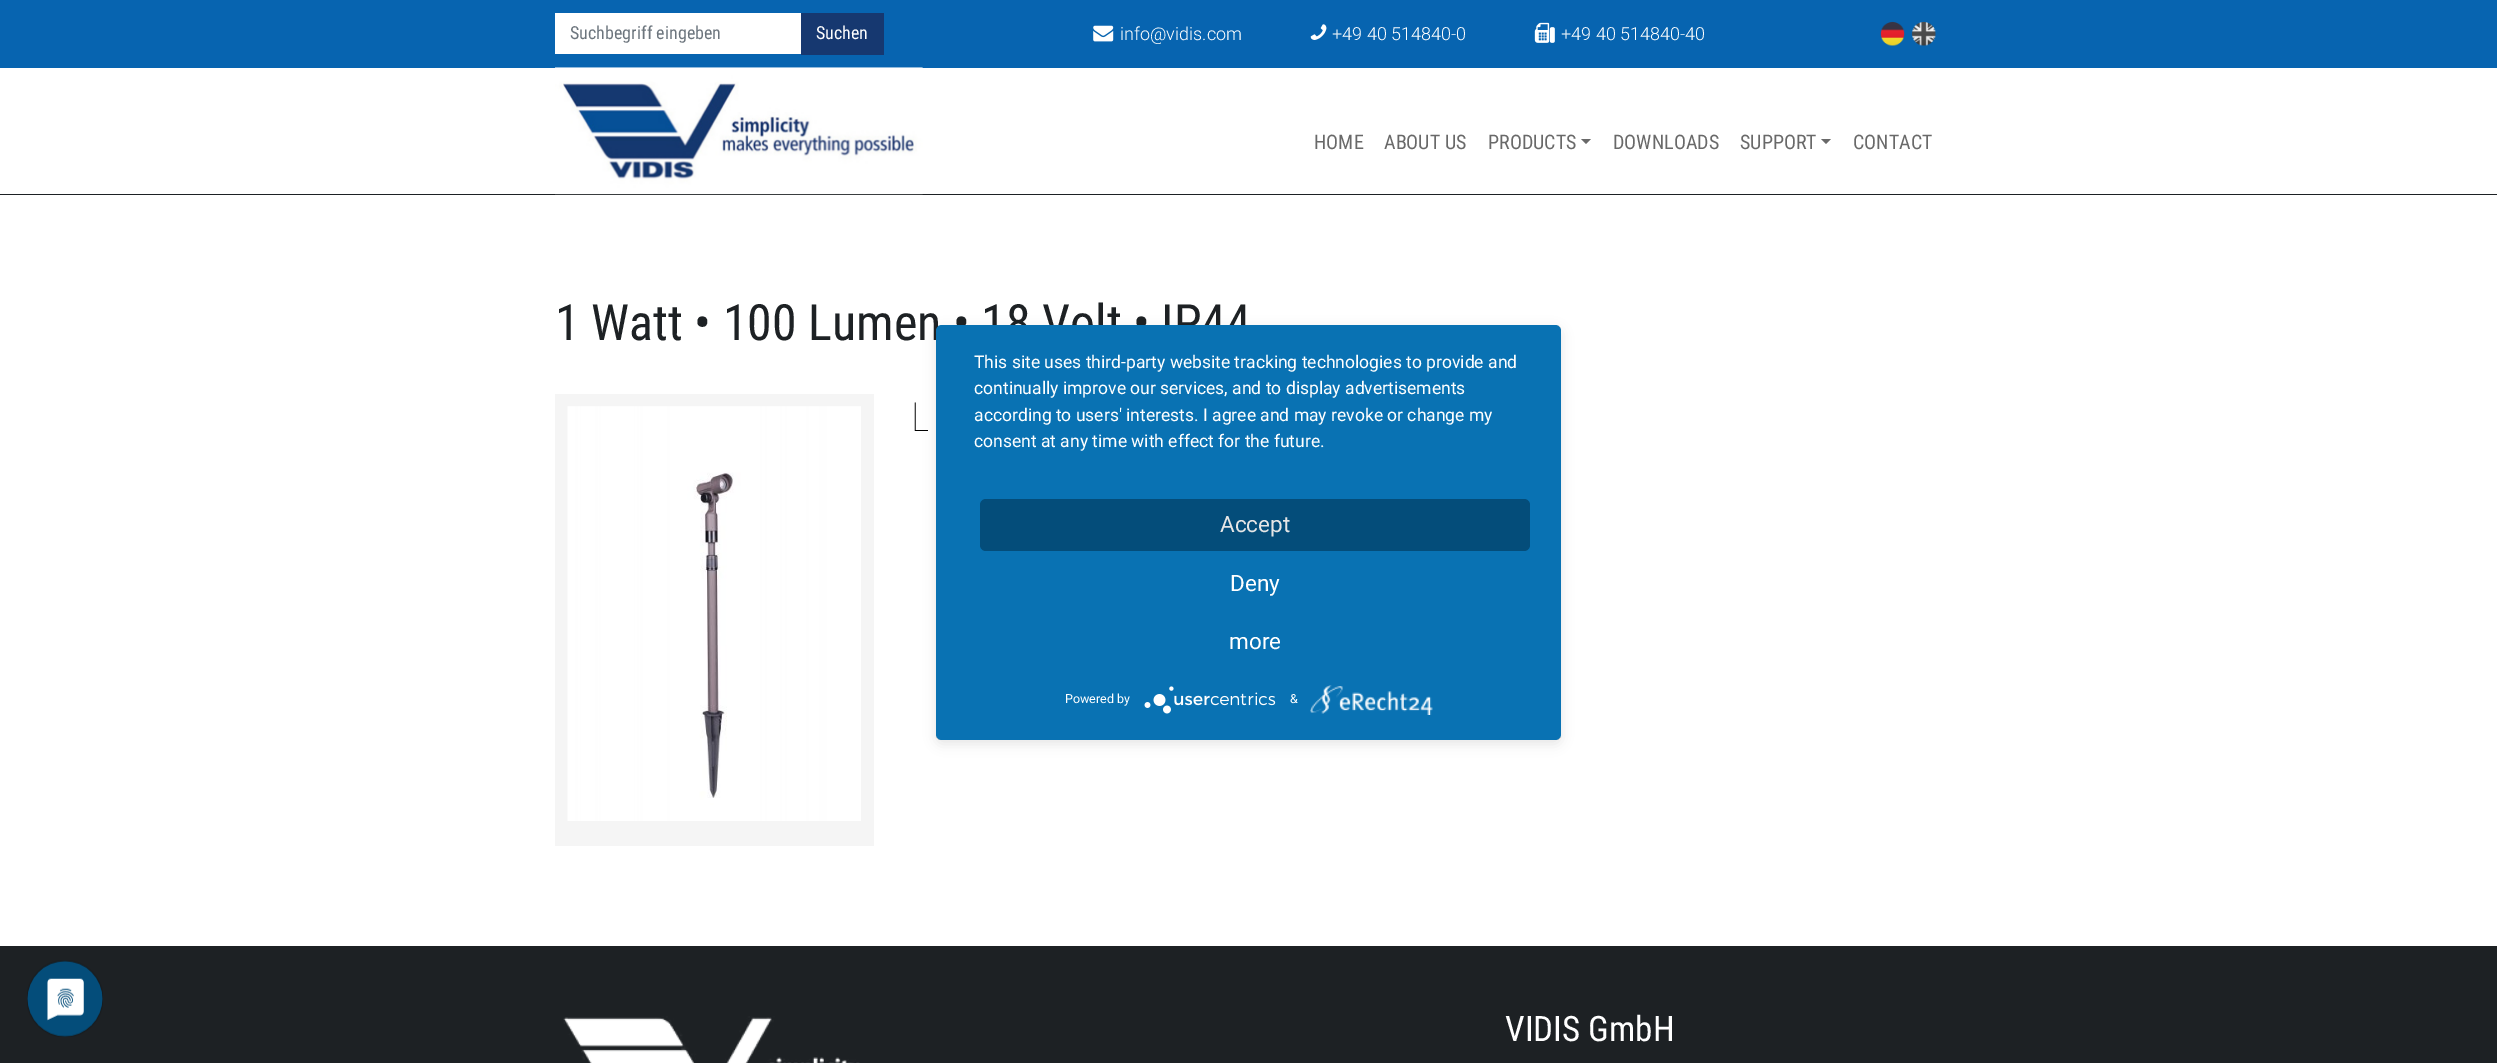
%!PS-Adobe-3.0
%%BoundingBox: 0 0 2497 1063
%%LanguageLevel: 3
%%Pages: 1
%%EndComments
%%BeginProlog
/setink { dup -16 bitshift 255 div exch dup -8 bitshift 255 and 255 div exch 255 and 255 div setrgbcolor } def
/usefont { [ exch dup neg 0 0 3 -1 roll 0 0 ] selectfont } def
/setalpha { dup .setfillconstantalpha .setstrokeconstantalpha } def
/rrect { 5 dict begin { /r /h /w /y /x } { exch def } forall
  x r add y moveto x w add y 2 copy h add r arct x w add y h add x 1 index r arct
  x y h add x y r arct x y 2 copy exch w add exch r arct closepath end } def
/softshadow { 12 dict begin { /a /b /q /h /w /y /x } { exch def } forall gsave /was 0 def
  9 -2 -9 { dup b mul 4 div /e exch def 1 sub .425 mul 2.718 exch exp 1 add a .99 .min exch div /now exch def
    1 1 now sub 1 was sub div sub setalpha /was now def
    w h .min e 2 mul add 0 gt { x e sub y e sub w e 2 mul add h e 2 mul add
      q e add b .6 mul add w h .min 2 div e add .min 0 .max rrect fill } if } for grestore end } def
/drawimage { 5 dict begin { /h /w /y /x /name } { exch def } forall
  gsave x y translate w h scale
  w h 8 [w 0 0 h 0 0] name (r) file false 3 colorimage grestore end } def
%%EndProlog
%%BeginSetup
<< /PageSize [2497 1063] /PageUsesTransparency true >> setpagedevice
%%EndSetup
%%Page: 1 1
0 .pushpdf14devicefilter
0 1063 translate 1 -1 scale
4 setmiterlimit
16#FFFFFF setink
0 0 2497 1063 rectfill
[
    [0 194 2497 1 16#1D2124]
    [0 0 2497 68 16#0764B0]
    [555 13 246 41 16#FFFFFF]
] { aload pop setink rectfill } forall
/RobotoCondensed-Regular 18 usefont
16#6C757D setink
570 39 moveto (Suchbegriff eingeben) show
16#163870 setink
801 13 83 42 rectfill
16#FFFFFF setink
816 39 moveto (Suchen) show
(img1.raw) 1093 25 21 17 drawimage
/Roboto-Light 18 usefont
1120 40 moveto (info@vidis.com) show
(img2.raw) 1310 24 17 16 drawimage
1332 40 moveto (+49 40 514840-0) show
(img3.raw) 1534 22 21 21 drawimage
1561 40 moveto (+49 40 514840-40) show
(img4.raw) 1880 21 25 25 drawimage
(img5.raw) 1911 21 25 25 drawimage
(img6.raw) 555 67 368 128 drawimage
/RobotoCondensed-Regular 20 usefont
16#696969 setink
[
    [(HOME) 1314 149]
    [(ABOUT US) 1384 149]
    [(PRODUCTS) 1488 149]
] { aload pop moveto show } forall
1581 139 moveto 1591 139 lineto 1586 144 lineto closepath fill
1613 149 moveto (DOWNLOADS) show
1740 149 moveto (SUPPORT) show
1821 139 moveto 1831 139 lineto 1826 144 lineto closepath fill
1853 149 moveto (CONTACT) show
/RobotoCondensed-Regular 50 usefont
16#1D2124 setink
555 340 moveto (1 Watt • 100 Lumen • 18 Volt • IP44) show
16#F5F5F5 setink
555 394 319 452 rectfill
(img7.raw) 567 406 294 415 drawimage
/RobotoCondensed-Thin 40 usefont
16#000000 setink
911 431 moveto (L) show
16#1D2124 setink
0 946 2497 117 rectfill
(img8.raw) 563 1016 297 47 drawimage
/RobotoCondensed-Regular 35 usefont
16#FFFFFF setink
1505 1041 moveto (VIDIS GmbH) show
16#000000 setink
936 329 625 415 6 6 0.1 softshadow
gsave
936 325 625 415 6 rrect clip newpath
936 333 625 415 0 22.5 0.3 softshadow
grestore
16#0972B3 setink
936 325 625 415 6 rrect fill
/Roboto-Regular 17.5 usefont
16#FFFFFF setink
[
    [(This site uses third-party website tracking technologies to provide and) 974 368]
    [(continually improve our services, and to display advertisements) 974 394]
    [(according to users' interests. I agree and may revoke or change my) 974 421]
    [(consent at any time with effect for the future.) 974 447]
] { aload pop moveto show } forall
16#044D7A setink
980 499 550 52 6 rrect fill
/Roboto-Regular 22.5 usefont
16#E6E6E6 setink
1220 532 moveto (Accept) show
16#FFFFFF setink
1230 591 moveto (Deny) show
1229 649 moveto (more) show
/Roboto-Regular 12.5 usefont
1065 703 moveto (Powered by) show
(img9.raw) 1144 686 132 28 drawimage
1290 703 moveto (&) show
(img10.raw) 1310 685 123 30 drawimage
(img11.raw) 27 960 76 77 drawimage
.poppdf14devicefilter showpage
%%EOF
